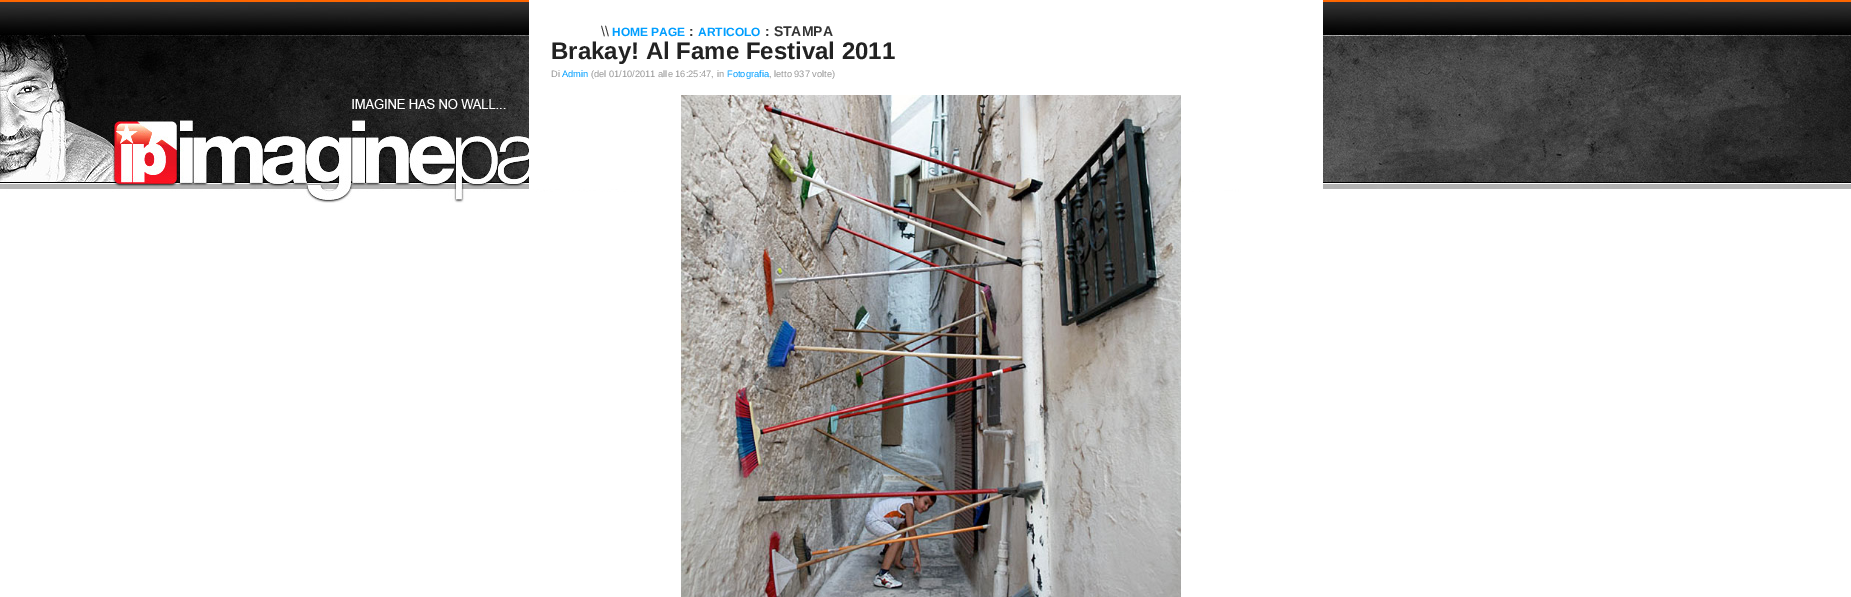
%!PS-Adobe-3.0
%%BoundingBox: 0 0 1851 597
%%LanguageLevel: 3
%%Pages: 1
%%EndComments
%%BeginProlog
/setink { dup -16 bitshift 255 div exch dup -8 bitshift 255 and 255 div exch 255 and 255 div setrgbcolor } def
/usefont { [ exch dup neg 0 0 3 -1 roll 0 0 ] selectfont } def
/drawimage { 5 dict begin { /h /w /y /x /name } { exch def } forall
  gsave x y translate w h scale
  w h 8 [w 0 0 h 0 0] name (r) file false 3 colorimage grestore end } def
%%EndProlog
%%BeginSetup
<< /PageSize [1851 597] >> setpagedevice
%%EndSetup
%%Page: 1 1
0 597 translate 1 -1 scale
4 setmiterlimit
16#FFFFFF setink
0 0 1851 597 rectfill
(img1.raw) 0 0 1851 203 drawimage
529 0 794 189 rectfill
/LiberationSans-Regular 14 usefont
16#333333 setink
601 36 moveto (\\\\) show
/LiberationSans-Bold 12 usefont
16#009EFF setink
612 36 moveto (HOME PAGE) show
/LiberationSans-Bold 14 usefont
16#333333 setink
689 36 moveto (:) show
/LiberationSans-Bold 12 usefont
16#009EFF setink
698 36 moveto (ARTICOLO) show
/LiberationSans-Bold 14 usefont
16#333333 setink
765 36 moveto (: STAMPA) show
/LiberationSans-Bold 24 usefont
16#222222 setink
551 59 moveto (Brakay! Al Fame Festival 2011) show
/LiberationSans-Regular 9.3 usefont
16#999999 setink
551 77 moveto (Di) show
16#009EFF setink
562 77 moveto (Admin) show
16#999999 setink
591 77 moveto (\(del 01/10/2011 alle 16:25:47, in) show
16#009EFF setink
727 77 moveto (Fotografia) show
16#999999 setink
769 77 moveto (, letto 937 volte\)) show
(img2.raw) 681 95 500 502 drawimage
showpage
%%EOF
